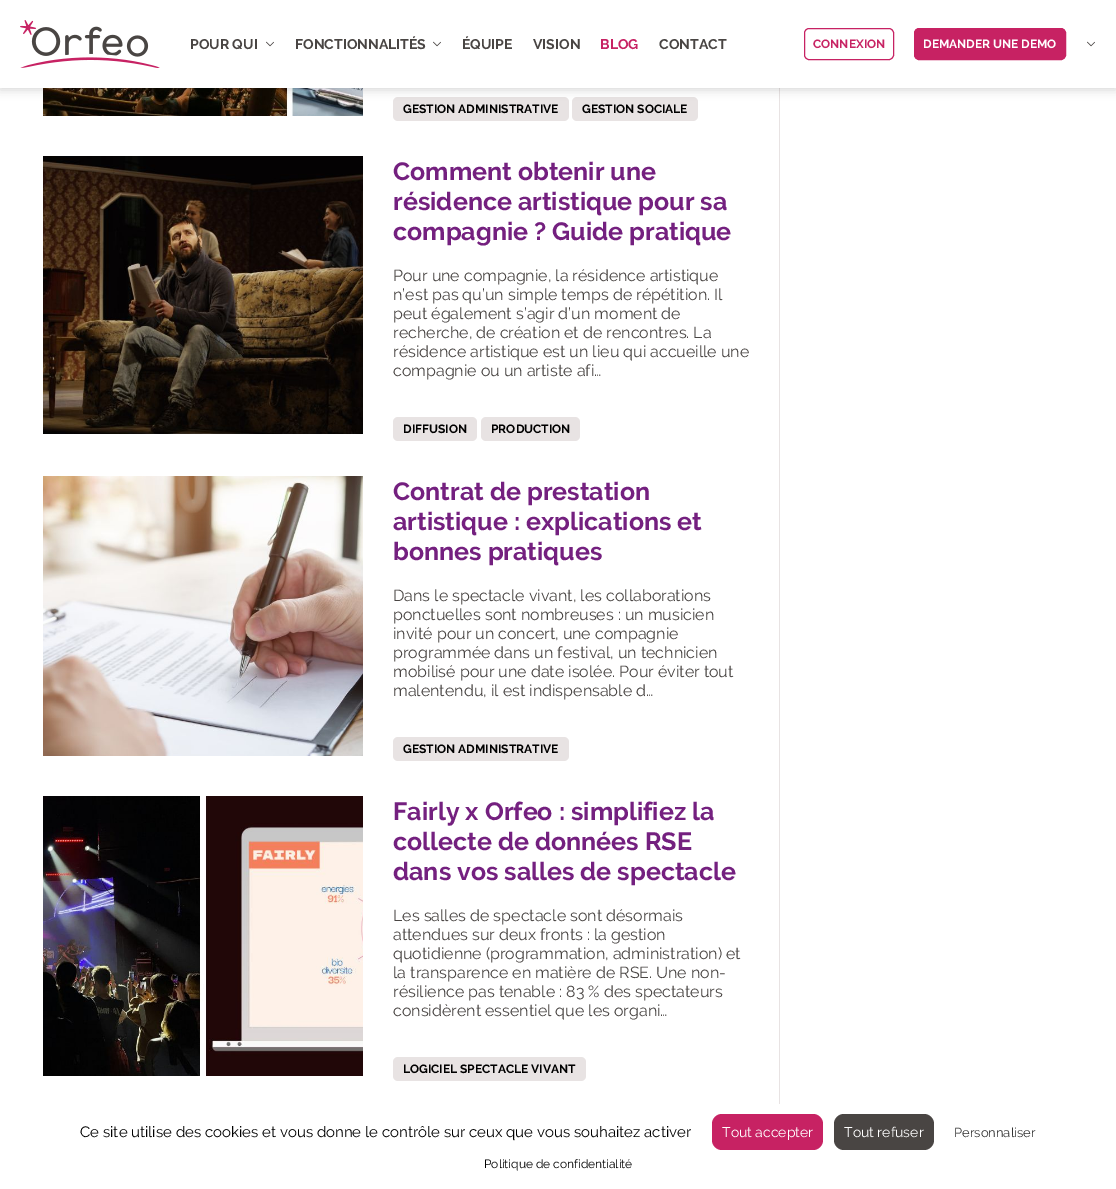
%!PS-Adobe-3.0
%%BoundingBox: 0 0 1116 1189
%%LanguageLevel: 3
%%Pages: 1
%%EndComments
%%BeginProlog
/setink { dup -16 bitshift 255 div exch dup -8 bitshift 255 and 255 div exch 255 and 255 div setrgbcolor } def
/usefont { [ exch dup neg 0 0 3 -1 roll 0 0 ] selectfont } def
/setalpha { dup .setfillconstantalpha .setstrokeconstantalpha } def
/rrect { 5 dict begin { /r /h /w /y /x } { exch def } forall
  x r add y moveto x w add y 2 copy h add r arct x w add y h add x 1 index r arct
  x y h add x y r arct x y 2 copy exch w add exch r arct closepath end } def
/softshadow { 12 dict begin { /a /b /q /h /w /y /x } { exch def } forall gsave /was 0 def
  9 -2 -9 { dup b mul 4 div /e exch def 1 sub .425 mul 2.718 exch exp 1 add a .99 .min exch div /now exch def
    1 1 now sub 1 was sub div sub setalpha /was now def
    w h .min e 2 mul add 0 gt { x e sub y e sub w e 2 mul add h e 2 mul add
      q e add b .6 mul add w h .min 2 div e add .min 0 .max rrect fill } if } for grestore end } def
/drawimage { 5 dict begin { /h /w /y /x /name } { exch def } forall
  gsave x y translate w h scale
  w h 8 [w 0 0 h 0 0] name (r) file false 3 colorimage grestore end } def
%%EndProlog
%%BeginSetup
<< /PageSize [1116 1189] /PageUsesTransparency true >> setpagedevice
%%EndSetup
%%Page: 1 1
0 .pushpdf14devicefilter
0 1189 translate 1 -1 scale
4 setmiterlimit
16#FFFFFF setink
0 0 1116 1189 rectfill
(img3.raw) 43 88 320 28 drawimage
16#E8E3E3 setink
393 97 176 24 5 rrect fill
572 97 126 24 5 rrect fill
779 88 1 1016 rectfill
16#000000 setink
0 2 1116 88 0 5 0.16 softshadow
16#FFFFFF setink
0 0 1116 88 rectfill
(img1.raw) 20 20 140 48 drawimage
/Raleway-Bold 14 usefont
16#494543 setink
190 49 moveto (POUR QUI) show
(img2.raw) 266 41 8 6 drawimage
295 49 moveto (FONCTIONNALITÉS) show
(img2.raw) 433 41 8 6 drawimage
462 49 moveto (ÉQUIPE) show
533 49 moveto (VISION) show
16#C72263 setink
600 49 moveto (BLOG) show
16#494543 setink
659 49 moveto (CONTACT) show
16#C72263 setink
804.5 28.5 89 31 4.5 rrect stroke
/Raleway-Bold 12 usefont
813 48 moveto (CONNEXION) show
914.5 28.5 151 31 4.5 rrect gsave fill grestore
stroke
16#FFFFFF setink
923 48 moveto (DEMANDER UNE DEMO) show
(img2.raw) 1087 41 8 6 drawimage
16#000000 setink
403 113 moveto (GESTION ADMINISTRATIVE) show
582 113 moveto (GESTION SOCIALE) show
(img4.raw) 43 156 320 278 drawimage
/Raleway-Bold 25 usefont
16#74207F setink
[
    [(Comment obtenir une) 393 180]
    [(résidence artistique pour sa) 393 210]
    [(compagnie ? Guide pratique) 393 240]
] { aload pop moveto show } forall
/Raleway-Regular 16 usefont
16#494543 setink
[
    [(Pour une compagnie, la résidence artistique) 393 281]
    [(n’est pas qu’un simple temps de répétition. Il) 393 300]
    [(peut également s’agir d’un moment de) 393 319]
    [(recherche, de création et de rencontres. La) 393 338]
    [(résidence artistique est un lieu qui accueille une) 393 357]
    [(compagnie ou un artiste afi…) 393 376]
] { aload pop moveto show } forall
16#E8E3E3 setink
393 417 84 24 5 rrect fill
/Raleway-Bold 12 usefont
16#000000 setink
403 433 moveto (DIFFUSION) show
16#E8E3E3 setink
481 417 99 24 5 rrect fill
16#000000 setink
491 433 moveto (PRODUCTION) show
(img5.raw) 43 476 320 280 drawimage
/Raleway-Bold 25 usefont
16#74207F setink
[
    [(Contrat de prestation) 393 500]
    [(artistique : explications et) 393 530]
    [(bonnes pratiques) 393 560]
] { aload pop moveto show } forall
/Raleway-Regular 16 usefont
16#494543 setink
[
    [(Dans le spectacle vivant, les collaborations) 393 601]
    [(ponctuelles sont nombreuses : un musicien) 393 620]
    [(invité pour un concert, une compagnie) 393 639]
    [(programmée dans un festival, un technicien) 393 658]
    [(mobilisé pour une date isolée. Pour éviter tout) 393 677]
    [(malentendu, il est indispensable d…) 393 696]
] { aload pop moveto show } forall
16#E8E3E3 setink
393 737 176 24 5 rrect fill
/Raleway-Bold 12 usefont
16#000000 setink
403 753 moveto (GESTION ADMINISTRATIVE) show
(img6.raw) 43 796 320 280 drawimage
/Raleway-Bold 25 usefont
16#74207F setink
[
    [(Fairly x Orfeo : simplifiez la) 393 820]
    [(collecte de données RSE) 393 850]
    [(dans vos salles de spectacle) 393 880]
] { aload pop moveto show } forall
/Raleway-Regular 16 usefont
16#494543 setink
[
    [(Les salles de spectacle sont désormais) 393 921]
    [(attendues sur deux fronts : la gestion) 393 940]
    [(quotidienne \(programmation, administration\) et) 393 959]
    [(la transparence en matière de RSE. Une non-) 393 978]
    [(résilience pas tenable : 83 % des spectateurs) 393 997]
    [(considèrent essentiel que les organi…) 393 1016]
] { aload pop moveto show } forall
16#E8E3E3 setink
393 1057 193 24 5 rrect fill
/Raleway-Bold 12 usefont
16#000000 setink
403 1073 moveto (LOGICIEL SPECTACLE VIVANT) show
/Raleway-Regular 15 usefont
80 1137 moveto (Ce site utilise des cookies et vous donne le contrôle sur ceux que vous souhaitez activer) show
16#C72263 setink
712 1114 111 36 10 rrect fill
/Raleway-Regular 14 usefont
16#FFFFFF setink
722 1137 moveto (Tout accepter) show
16#494543 setink
834 1114 100 36 10 rrect fill
16#FFFFFF setink
844 1137 moveto (Tout refuser) show
/Raleway-Regular 13 usefont
16#333333 setink
954 1137 moveto (Personnaliser) show
/Raleway-Regular 12 usefont
16#000000 setink
484 1168 moveto (Politique de confidentialité) show
.poppdf14devicefilter showpage
%%EOF
